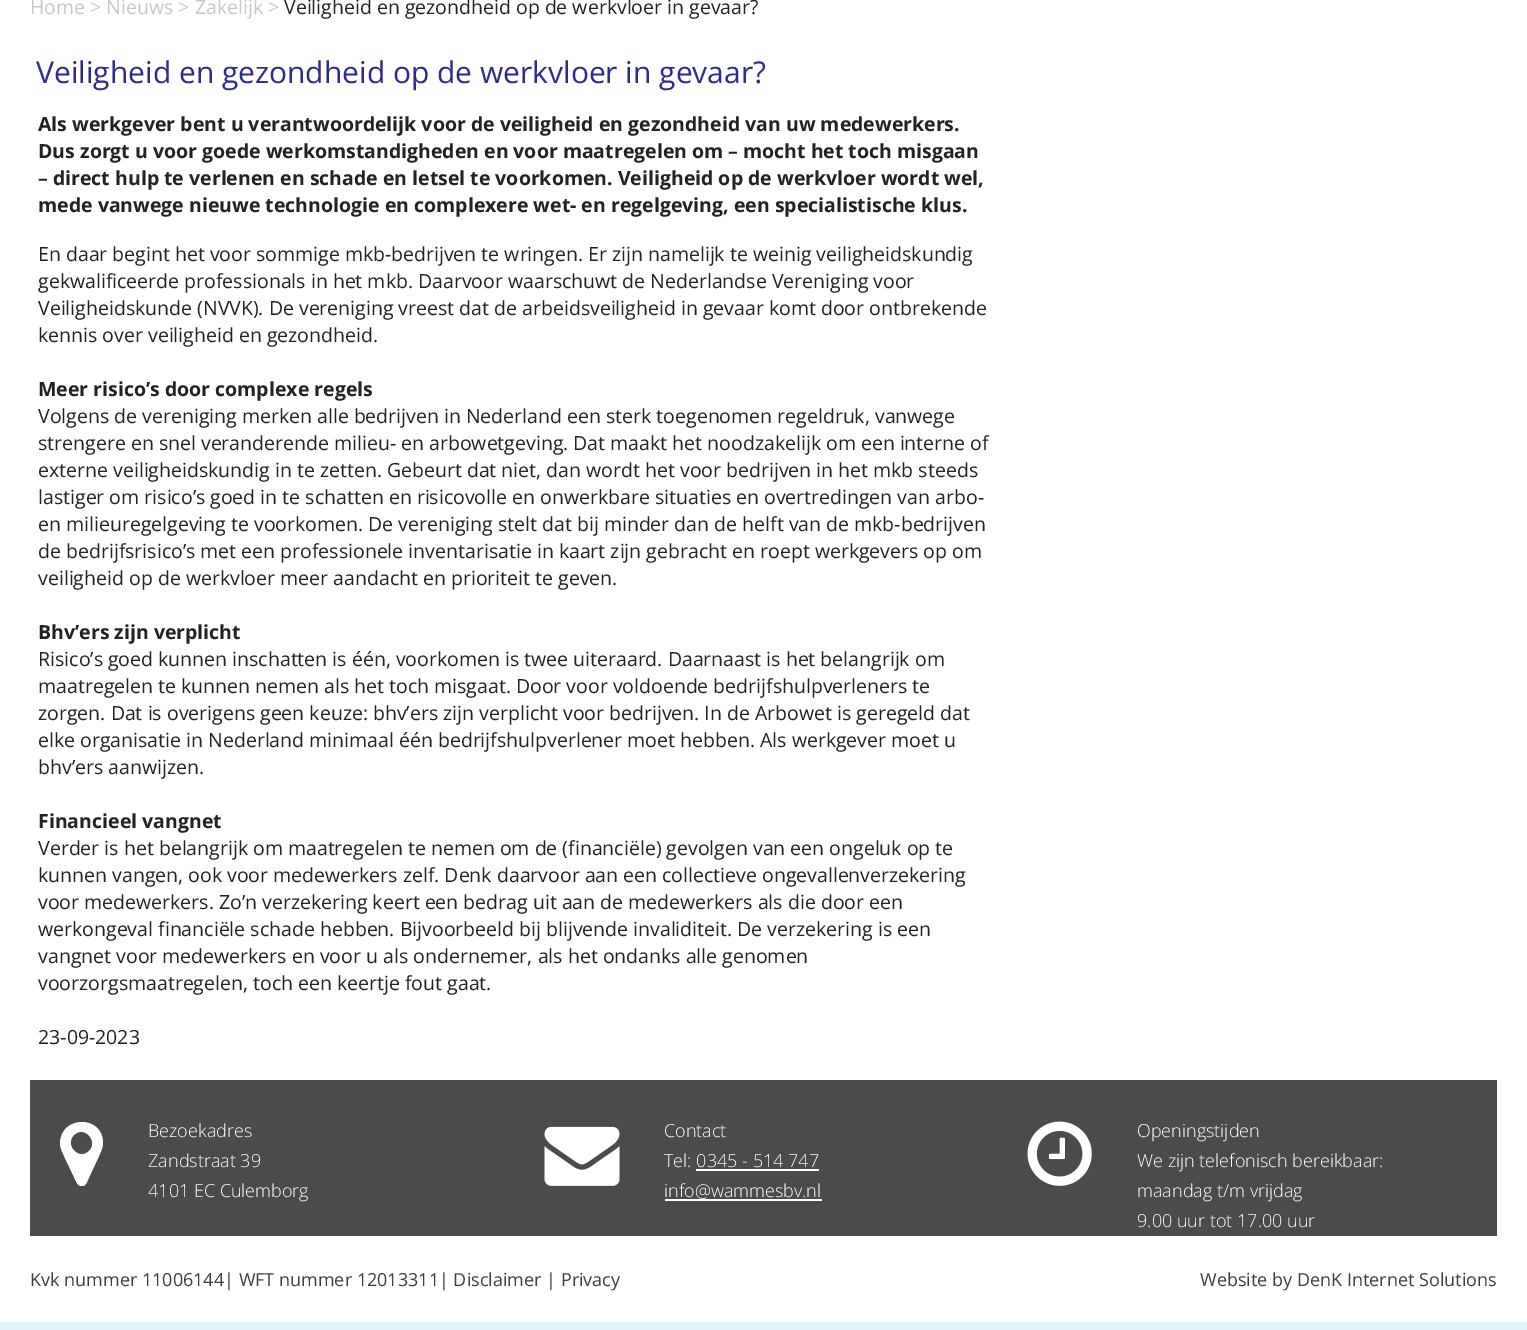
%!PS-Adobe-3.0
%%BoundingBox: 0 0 1527 1330
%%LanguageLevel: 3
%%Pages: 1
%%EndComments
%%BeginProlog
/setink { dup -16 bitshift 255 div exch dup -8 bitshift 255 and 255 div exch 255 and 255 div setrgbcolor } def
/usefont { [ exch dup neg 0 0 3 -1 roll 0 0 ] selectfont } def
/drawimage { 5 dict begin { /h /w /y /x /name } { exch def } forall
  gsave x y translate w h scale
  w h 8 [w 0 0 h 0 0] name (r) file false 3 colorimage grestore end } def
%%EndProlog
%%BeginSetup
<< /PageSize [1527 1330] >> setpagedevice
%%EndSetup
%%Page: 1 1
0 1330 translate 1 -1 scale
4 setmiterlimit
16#E2F3FB setink
0 0 1527 1330 rectfill
16#FFFFFF setink
0 0 1527 1322 rectfill
/OpenSans-Regular 19.5 usefont
16#C8C8C7 setink
30 14 moveto (Home > Nieuws > Zakelijk >) show
16#222221 setink
284 14 moveto (Veiligheid en gezondheid op de werkvloer in gevaar?) show
/OpenSans-Regular 30 usefont
16#2B2E83 setink
36 83 moveto (Veiligheid en gezondheid op de werkvloer in gevaar?) show
/OpenSans-Bold 19.5 usefont
16#222221 setink
[
    [(Als werkgever bent u verantwoordelijk voor de veiligheid en gezondheid van uw medewerkers.) 38 131]
    [(Dus zorgt u voor goede werkomstandigheden en voor maatregelen om – mocht het toch misgaan) 38 158]
    [(– direct hulp te verlenen en schade en letsel te voorkomen. Veiligheid op de werkvloer wordt wel,) 38 185]
    [(mede vanwege nieuwe technologie en complexere wet- en regelgeving, een specialistische klus.) 38 212]
] { aload pop moveto show } forall
/OpenSans-Regular 19.5 usefont
[
    [(En daar begint het voor sommige mkb-bedrijven te wringen. Er zijn namelijk te weinig veiligheidskundig) 38 261]
    [(gekwalificeerde professionals in het mkb. Daarvoor waarschuwt de Nederlandse Vereniging voor) 38 288]
    [(Veiligheidskunde \(NVVK\). De vereniging vreest dat de arbeidsveiligheid in gevaar komt door ontbrekende) 38 315]
    [(kennis over veiligheid en gezondheid.) 38 342]
] { aload pop moveto show } forall
/OpenSans-Bold 19.5 usefont
38 396 moveto (Meer risico’s door complexe regels) show
/OpenSans-Regular 19.5 usefont
[
    [(Volgens de vereniging merken alle bedrijven in Nederland een sterk toegenomen regeldruk, vanwege) 38 423]
    [(strengere en snel veranderende milieu- en arbowetgeving. Dat maakt het noodzakelijk om een interne of) 38 450]
    [(externe veiligheidskundig in te zetten. Gebeurt dat niet, dan wordt het voor bedrijven in het mkb steeds) 38 477]
    [(lastiger om risico’s goed in te schatten en risicovolle en onwerkbare situaties en overtredingen van arbo-) 38 504]
    [(en milieuregelgeving te voorkomen. De vereniging stelt dat bij minder dan de helft van de mkb-bedrijven) 38 531]
    [(de bedrijfsrisico’s met een professionele inventarisatie in kaart zijn gebracht en roept werkgevers op om) 38 558]
    [(veiligheid op de werkvloer meer aandacht en prioriteit te geven.) 38 585]
] { aload pop moveto show } forall
/OpenSans-Bold 19.5 usefont
38 639 moveto (Bhv’ers zijn verplicht) show
/OpenSans-Regular 19.5 usefont
[
    [(Risico’s goed kunnen inschatten is één, voorkomen is twee uiteraard. Daarnaast is het belangrijk om) 38 666]
    [(maatregelen te kunnen nemen als het toch misgaat. Door voor voldoende bedrijfshulpverleners te) 38 693]
    [(zorgen. Dat is overigens geen keuze: bhv’ers zijn verplicht voor bedrijven. In de Arbowet is geregeld dat) 38 720]
    [(elke organisatie in Nederland minimaal één bedrijfshulpverlener moet hebben. Als werkgever moet u) 38 747]
    [(bhv’ers aanwijzen.) 38 774]
] { aload pop moveto show } forall
/OpenSans-Bold 19.5 usefont
38 828 moveto (Financieel vangnet) show
/OpenSans-Regular 19.5 usefont
[
    [(Verder is het belangrijk om maatregelen te nemen om de \(financiële\) gevolgen van een ongeluk op te) 38 855]
    [(kunnen vangen, ook voor medewerkers zelf. Denk daarvoor aan een collectieve ongevallenverzekering) 38 882]
    [(voor medewerkers. Zo’n verzekering keert een bedrag uit aan de medewerkers als die door een) 38 909]
    [(werkongeval financiële schade hebben. Bijvoorbeeld bij blijvende invaliditeit. De verzekering is een) 38 936]
    [(vangnet voor medewerkers en voor u als ondernemer, als het ondanks alle genomen) 38 963]
    [(voorzorgsmaatregelen, toch een keertje fout gaat.) 38 990]
    [(23-09-2023) 38 1044]
] { aload pop moveto show } forall
16#4B4B4B setink
30 1080 1467 156 rectfill
16#FFFFFF setink
89 1151 moveto 99 1141 84 1125 74 1135 curveto 64 1145 79 1161 89 1151 curveto closepath 103 1143 moveto 103 1148 101 1151 99 1156 curveto 86 1184 lineto 85 1185 84 1186 82 1186 curveto 77 1186 76 1181 74 1177 curveto 64 1156 lineto 62 1151 60 1148 60 1143 curveto 61 1115 103 1115 103 1143 curveto closepath fill
/OpenSans-Light 18 usefont
[
    [(Bezoekadres) 148 1137]
    [(Zandstraat 39) 148 1167]
    [(4101 EC Culemborg) 148 1197]
] { aload pop moveto show } forall
(img1.raw) 544 1126 76 60 drawimage
664 1137 moveto (Contact) show
664 1167 moveto (Tel: 0345 - 514 747) show
696 1169 123 2 rectfill
664 1197 moveto (info@wammesbv.nl) show
665 1199 157 2 rectfill
(img2.raw) 1027 1121 65 65 drawimage
[
    [(Openingstijden) 1137 1137]
    [(We zijn telefonisch bereikbaar:) 1137 1167]
    [(maandag t/m vrijdag) 1137 1197]
    [(9.00 uur tot 17.00 uur) 1137 1227]
] { aload pop moveto show } forall
/OpenSans-Regular 18 usefont
16#3E3E3E setink
30 1286 moveto (Kvk nummer 11006144| WFT nummer 12013311| Disclaimer | Privacy) show
1200 1286 moveto (Website by DenK Internet Solutions) show
showpage
%%EOF
